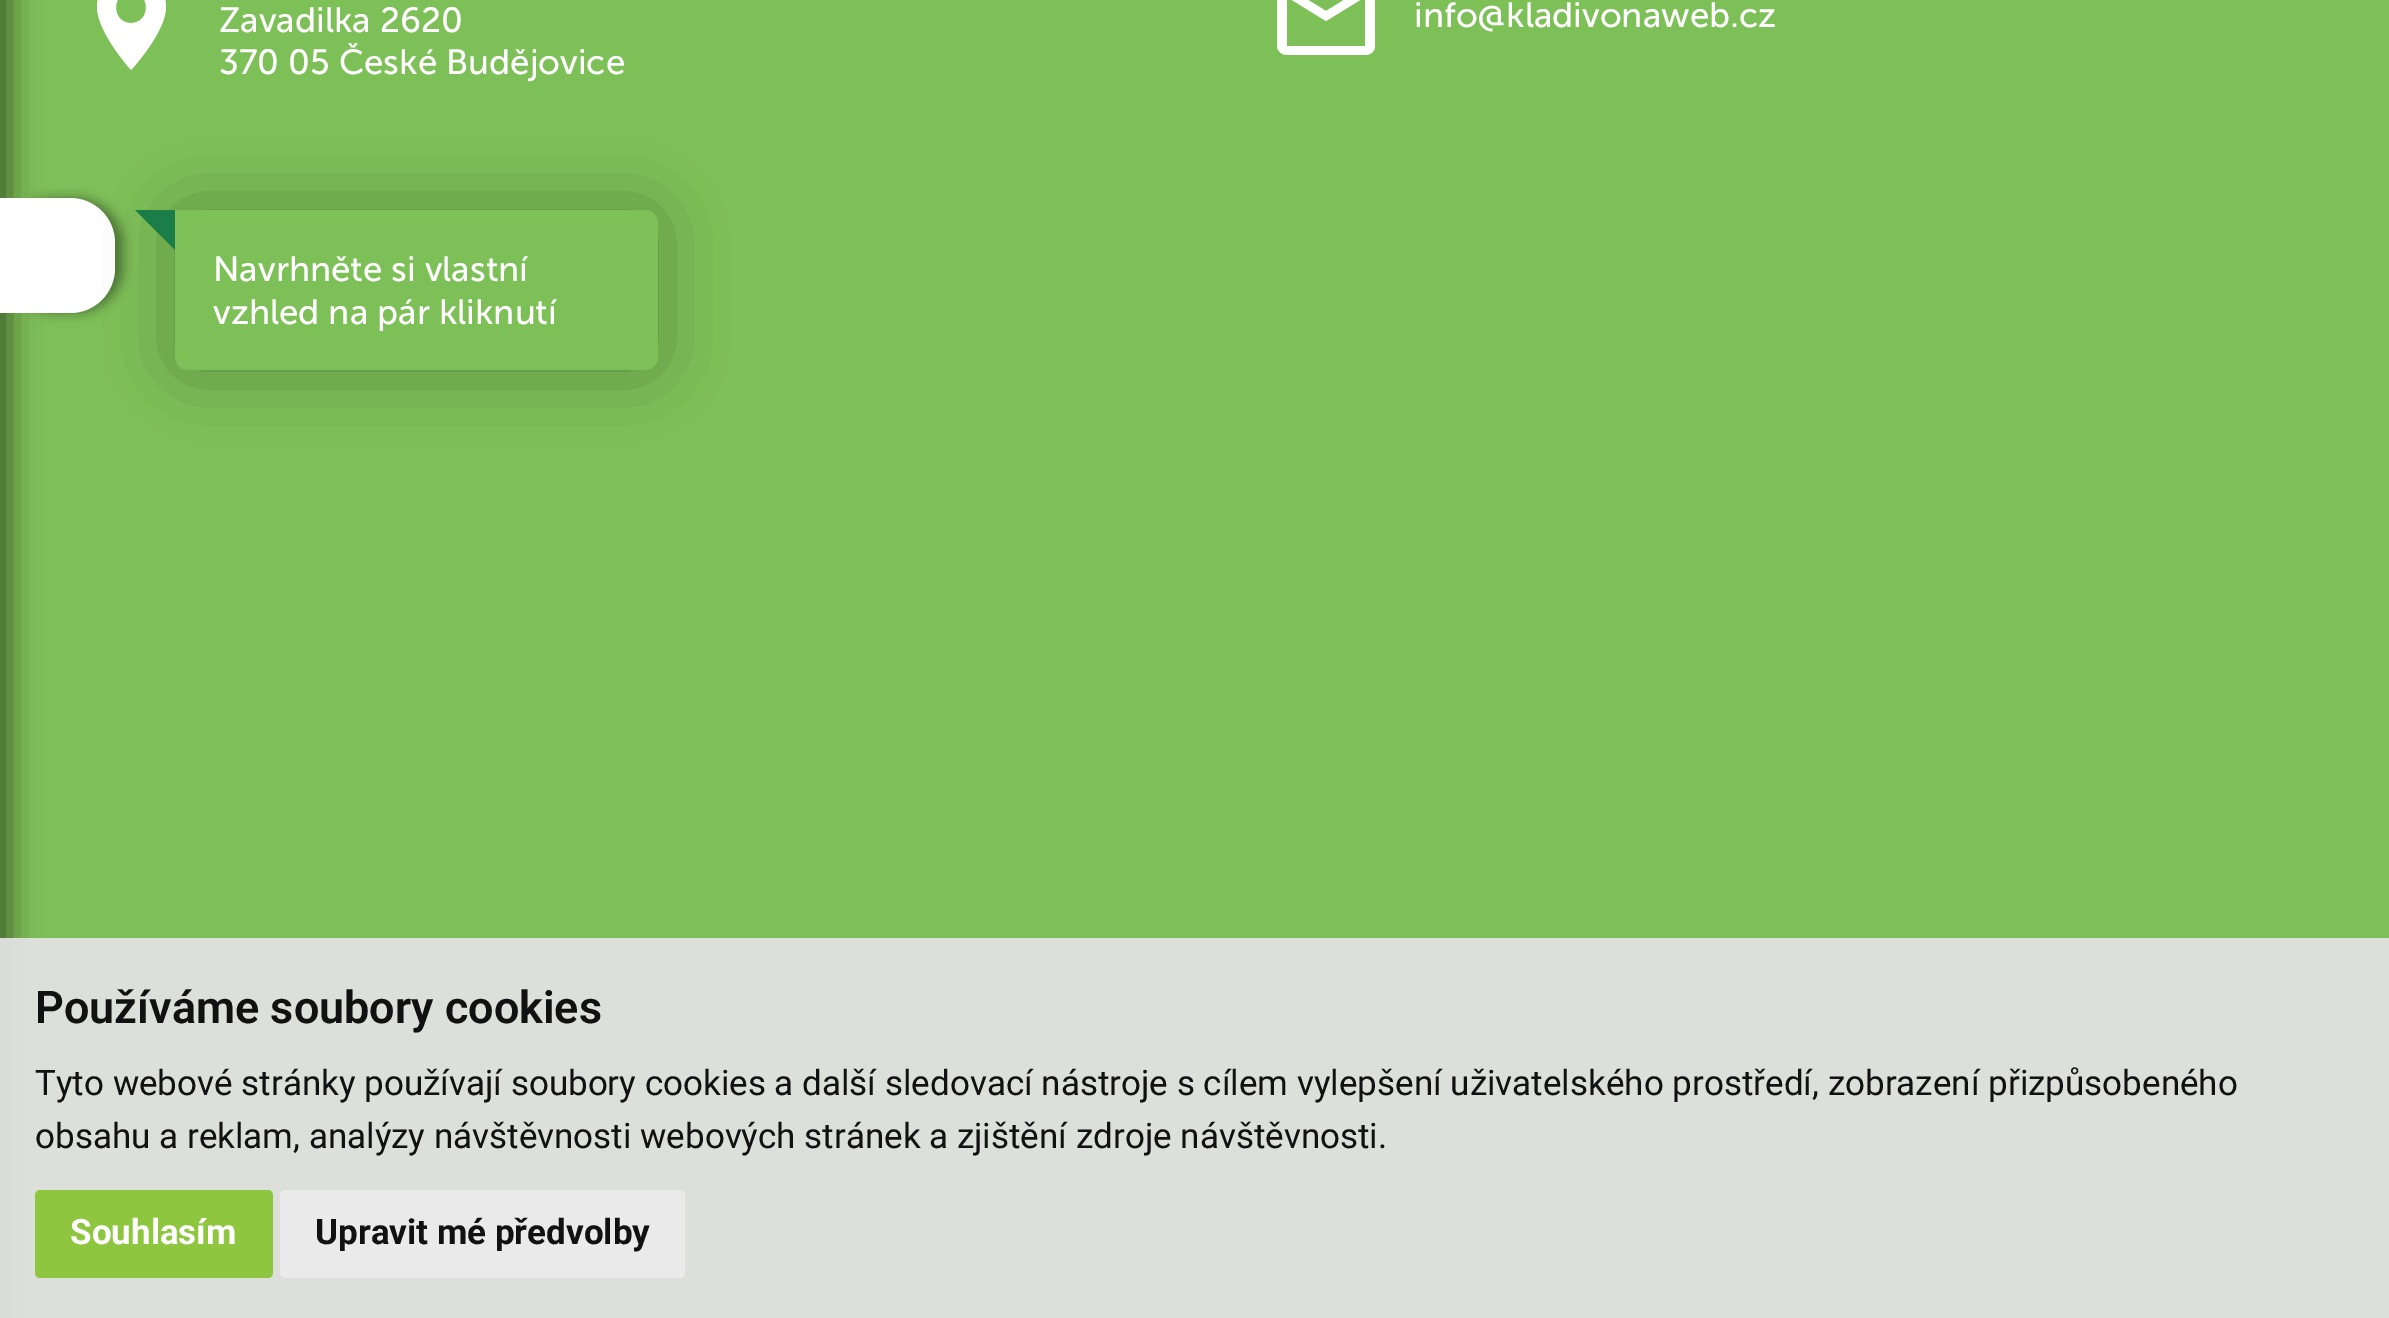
%!PS-Adobe-3.0
%%BoundingBox: 0 0 2389 1318
%%LanguageLevel: 3
%%Pages: 1
%%EndComments
%%BeginProlog
/setink { dup -16 bitshift 255 div exch dup -8 bitshift 255 and 255 div exch 255 and 255 div setrgbcolor } def
/usefont { [ exch dup neg 0 0 3 -1 roll 0 0 ] selectfont } def
/setalpha { dup .setfillconstantalpha .setstrokeconstantalpha } def
/rrect { 5 dict begin { /r /h /w /y /x } { exch def } forall
  x r add y moveto x w add y 2 copy h add r arct x w add y h add x 1 index r arct
  x y h add x y r arct x y 2 copy exch w add exch r arct closepath end } def
/softshadow { 12 dict begin { /a /b /q /h /w /y /x } { exch def } forall gsave /was 0 def
  9 -2 -9 { dup b mul 4 div /e exch def 1 sub .425 mul 2.718 exch exp 1 add a .99 .min exch div /now exch def
    1 1 now sub 1 was sub div sub setalpha /was now def
    w h .min e 2 mul add 0 gt { x e sub y e sub w e 2 mul add h e 2 mul add
      q e add b .6 mul add w h .min 2 div e add .min 0 .max rrect fill } if } for grestore end } def
%%EndProlog
%%BeginSetup
<< /PageSize [2389 1318] /PageUsesTransparency true >> setpagedevice
%%EndSetup
%%Page: 1 1
0 .pushpdf14devicefilter
0 1318 translate 1 -1 scale
4 setmiterlimit
16#7EC058 setink
0 0 2389 1318 rectfill
16#FFFFFF setink
131 -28 moveto 112 -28 97 -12 97 7 curveto 97 32 131 70 131 70 curveto 131 70 166 32 166 7 curveto 166 -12 150 -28 131 -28 curveto closepath 131 23 moveto 111 23 111 -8 131 -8 curveto 151 -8 151 23 131 23 curveto closepath fill
/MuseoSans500-Regular 35 usefont
219 32 moveto (Zavadilka 2620) show
219 74 moveto (370 05 České Budějovice) show
1365 -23 moveto 1287 -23 lineto 1282 -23 1277 -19 1277 -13 curveto 1277 46 lineto 1277 51 1282 55 1287 55 curveto 1365 55 lineto 1371 55 1375 51 1375 46 curveto 1375 -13 lineto 1375 -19 1371 -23 1365 -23 curveto closepath 1365 46 moveto 1287 46 lineto 1287 -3 lineto 1326 21 lineto 1365 -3 lineto closepath 1326 11 moveto 1287 -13 lineto 1365 -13 lineto closepath fill
1414 27 moveto (info@kladivonaweb.cz) show
16#000000 setink
-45 -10 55 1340 0 15 0.5 softshadow
8 198 115 115 45 6 0.4 softshadow
16#FFFFFF setink
0 198 moveto 70 198 lineto 95 198 115 218 115 243 curveto 115 268 lineto 115 293 95 313 70 313 curveto 0 313 lineto closepath fill
16#000000 setink
183 218 467 145 5 36 0.35 softshadow
16#7EC058 setink
175 210 moveto 645 210 lineto 652 210 658 216 658 223 curveto 658 357 lineto 658 364 652 370 645 370 curveto 188 370 lineto 181 370 175 364 175 357 curveto closepath fill
16#1B7D47 setink
175 210 moveto 175 250 lineto 135 210 lineto closepath fill
16#FFFFFF setink
213 281 moveto (Navrhněte si vlastní) show
213 324 moveto (vzhled na pár kliknutí) show
0.95 setalpha
16#E1E1E1 setink
0 938 2389 380 rectfill
/Roboto-SemiBold 45 usefont
1 setalpha
16#111111 setink
35 1023 moveto (Používáme soubory cookies) show
/Roboto-Regular 35 usefont
35 1095 moveto (Tyto webové stránky používají soubory cookies a další sledovací nástroje s cílem vylepšení uživatelského prostředí, zobrazení přizpůsobeného) show
35 1148 moveto (obsahu a reklam, analýzy návštěvnosti webových stránek a zjištění zdroje návštěvnosti.) show
16#8EC73F setink
35 1190 238 88 5 rrect fill
/Roboto-Bold 35 usefont
16#FFFFFF setink
70 1244 moveto (Souhlasím) show
16#EAEAEA setink
280 1190 405 88 5 rrect fill
16#111111 setink
315 1244 moveto (Upravit mé předvolby) show
.poppdf14devicefilter showpage
%%EOF
